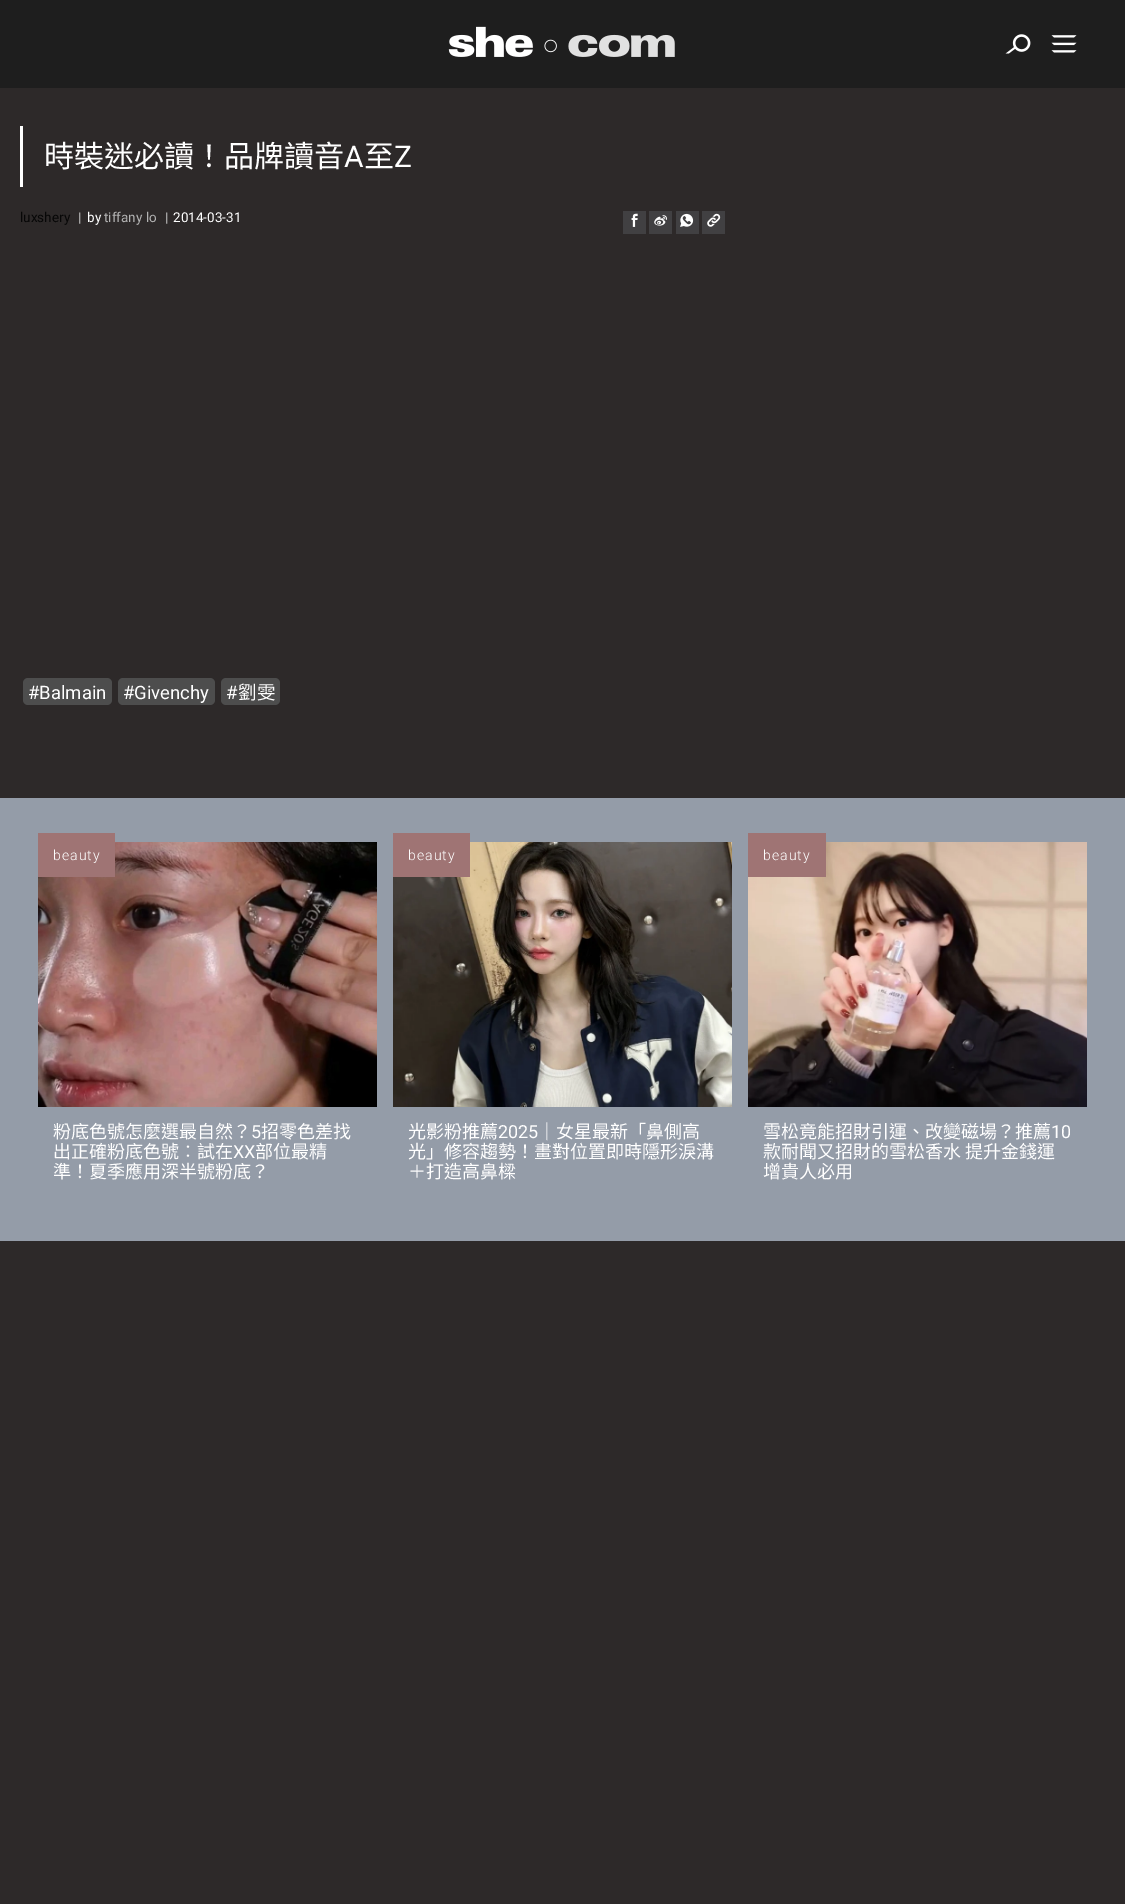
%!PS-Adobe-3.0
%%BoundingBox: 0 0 1125 1904
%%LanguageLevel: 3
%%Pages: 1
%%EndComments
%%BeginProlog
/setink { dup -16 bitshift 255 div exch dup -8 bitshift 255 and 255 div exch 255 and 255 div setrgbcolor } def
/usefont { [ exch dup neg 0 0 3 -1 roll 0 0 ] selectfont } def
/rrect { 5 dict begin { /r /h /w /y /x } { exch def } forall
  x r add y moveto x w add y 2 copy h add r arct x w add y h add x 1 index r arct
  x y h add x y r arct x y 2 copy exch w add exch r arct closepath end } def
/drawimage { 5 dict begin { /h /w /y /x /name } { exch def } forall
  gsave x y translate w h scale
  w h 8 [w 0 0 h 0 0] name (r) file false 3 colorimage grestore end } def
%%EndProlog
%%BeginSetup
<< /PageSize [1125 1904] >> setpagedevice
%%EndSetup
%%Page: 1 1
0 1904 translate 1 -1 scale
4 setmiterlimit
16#2D2929 setink
0 0 1125 1904 rectfill
16#1E1E1E setink
0 0 1125 88 rectfill
(img1.raw) 448 26 227 31 drawimage
(img2.raw) 1005 34 26 20 drawimage
(img3.raw) 1051 35 26 18 drawimage
16#FFFFFF setink
20 126 3 61 rectfill
/NotoSansCJKTC-Regular 30 usefont
44 167 moveto (時裝迷必讀！品牌讀音) show
/Roboto-Regular 30 usefont
344 167 moveto (A) show
/NotoSansCJKTC-Regular 30 usefont
364 167 moveto (至) show
/Roboto-Regular 30 usefont
394 167 moveto (Z) show
/Roboto-Regular 13.5 usefont
16#070707 setink
20 222 moveto (luxshery) show
16#CCCCCC setink
78 222 moveto (|) show
16#FFFFFF setink
87 222 moveto (by) show
16#B3B3B3 setink
104 222 moveto (tiffany lo) show
16#CCCCCC setink
165 222 moveto (|) show
16#FFFFFF setink
173 222 moveto (2014-03-31) show
16#414042 setink
623 211 23 23 rectfill
(img4.raw) 631 213 7 14 drawimage
649 211 23 23 rectfill
(img5.raw) 654 215 13 11 drawimage
676 211 23 23 rectfill
(img6.raw) 680 213 14 14 drawimage
702 211 23 23 rectfill
(img7.raw) 707 213 14 14 drawimage
16#4D4D4D setink
23 678 89 27 5 rrect fill
/Roboto-Regular 18.5 usefont
16#FFFFFF setink
28 699 moveto (#Balmain) show
16#4D4D4D setink
118 678 97 27 5 rrect fill
16#FFFFFF setink
123 699 moveto (#Givenchy) show
16#4D4D4D setink
221 678 59 27 5 rrect fill
16#FFFFFF setink
226 699 moveto (#) show
/NotoSansCJKTC-Regular 18.5 usefont
238 699 moveto (劉雯) show
16#949CA8 setink
0 798 1125 443 rectfill
(img8.raw) 38 842 339 265 drawimage
16#9F7474 setink
38 833 77 44 rectfill
/Roboto-Light 14 usefont
16#FFFFFF setink
53 860 moveto 1 0 (beauty) ashow
/NotoSansCJKTC-Regular 18 usefont
53 1138 moveto (粉底色號怎麼選最自然？) show
/Roboto-Regular 18 usefont
251 1138 moveto (5) show
/NotoSansCJKTC-Regular 18 usefont
261 1138 moveto (招零色差找) show
53 1158 moveto (出正確粉底色號︰試在) show
/Roboto-Regular 18 usefont
233 1158 moveto (XX) show
/NotoSansCJKTC-Regular 18 usefont
255 1158 moveto (部位最精) show
53 1178 moveto (準！夏季應用深半號粉底？) show
(img9.raw) 393 842 339 265 drawimage
16#9F7474 setink
393 833 77 44 rectfill
/Roboto-Light 14 usefont
16#FFFFFF setink
408 860 moveto 1 0 (beauty) ashow
/NotoSansCJKTC-Regular 18 usefont
408 1138 moveto (光影粉推薦) show
/Roboto-Regular 18 usefont
498 1138 moveto (2025) show
/NotoSansCJKTC-Regular 18 usefont
[
    [(｜女星最新「鼻側高) 538 1138]
    [(光」修容趨勢！畫對位置即時隱形淚溝) 408 1158]
    [(＋打造高鼻樑) 408 1178]
] { aload pop moveto show } forall
(img10.raw) 748 842 339 265 drawimage
16#9F7474 setink
748 833 78 44 rectfill
/Roboto-Light 14 usefont
16#FFFFFF setink
763 860 moveto 1 0 (beauty) ashow
/NotoSansCJKTC-Regular 18 usefont
763 1138 moveto (雪松竟能招財引運、改變磁場？推薦) show
/Roboto-Regular 18 usefont
1051 1138 moveto (10) show
/NotoSansCJKTC-Regular 18 usefont
763 1158 moveto (款耐聞又招財的雪松香水 提升金錢運) show
763 1178 moveto (增貴人必用) show
showpage
%%EOF
